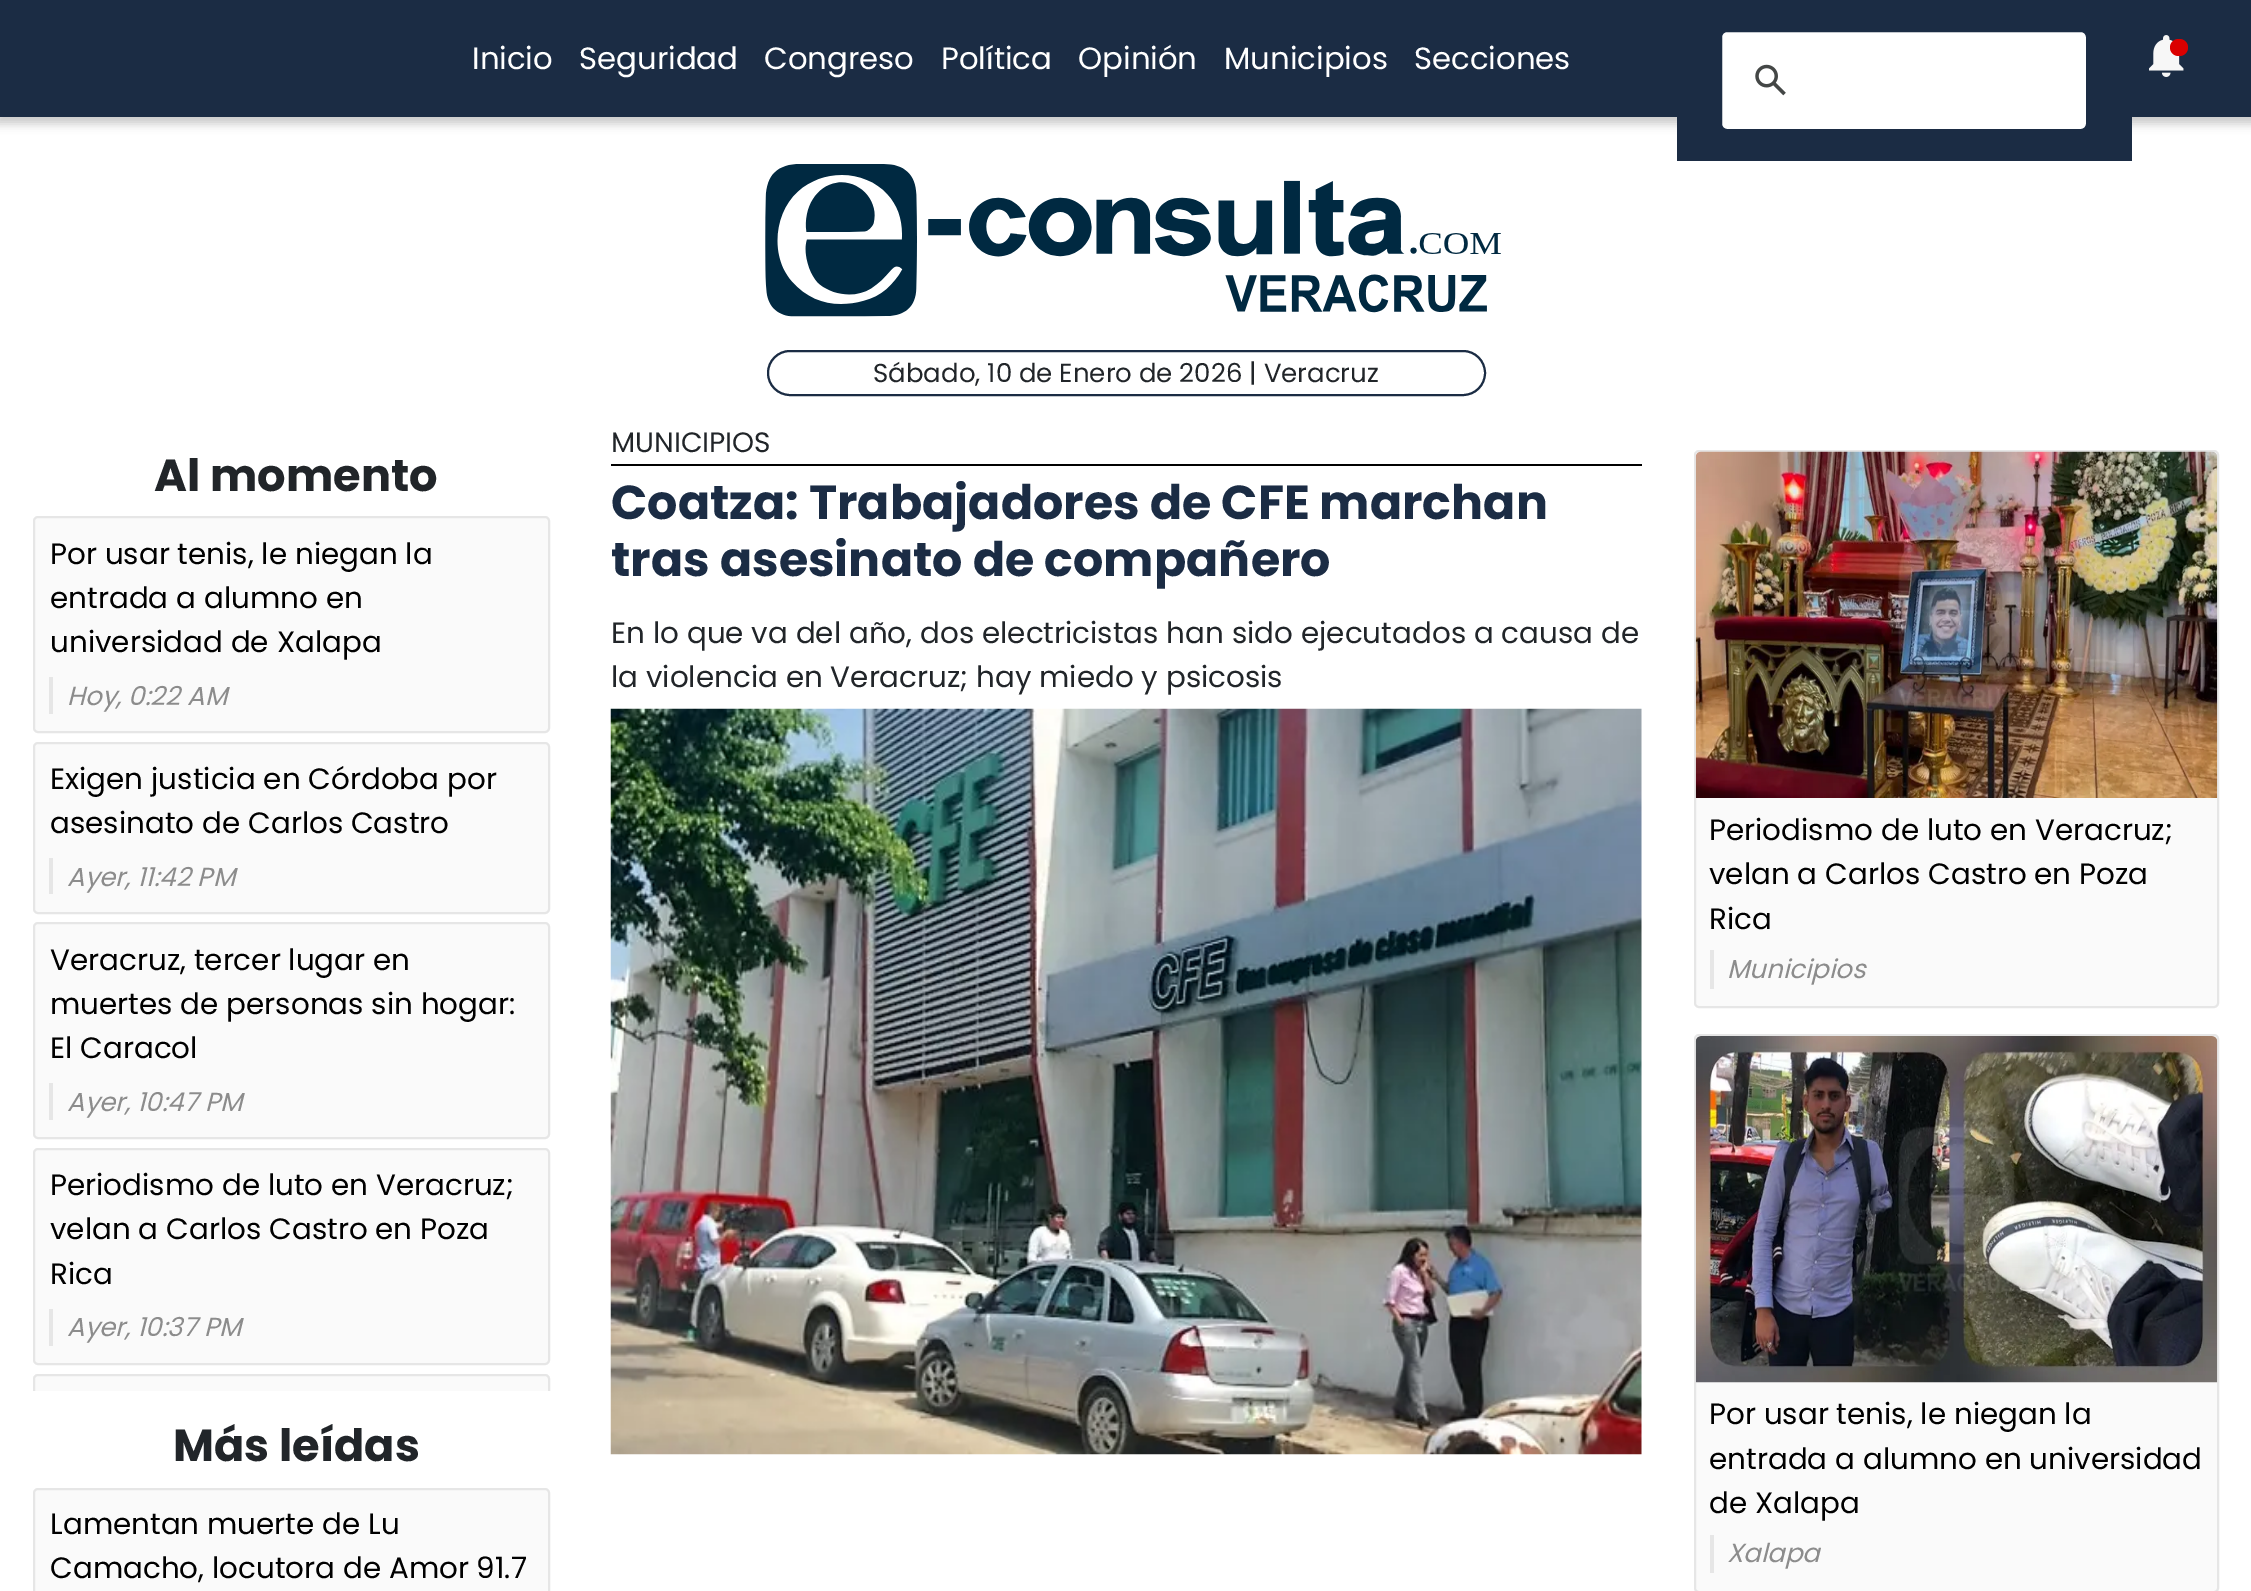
%!PS-Adobe-3.0
%%BoundingBox: 0 0 2251 1591
%%LanguageLevel: 3
%%Pages: 1
%%EndComments
%%BeginProlog
/setink { dup -16 bitshift 255 div exch dup -8 bitshift 255 and 255 div exch 255 and 255 div setrgbcolor } def
/usefont { [ exch dup neg 0 0 3 -1 roll 0 0 ] selectfont } def
/setalpha { dup .setfillconstantalpha .setstrokeconstantalpha } def
/rrect { 5 dict begin { /r /h /w /y /x } { exch def } forall
  x r add y moveto x w add y 2 copy h add r arct x w add y h add x 1 index r arct
  x y h add x y r arct x y 2 copy exch w add exch r arct closepath end } def
/softshadow { 12 dict begin { /a /b /q /h /w /y /x } { exch def } forall gsave /was 0 def
  9 -2 -9 { dup b mul 4 div /e exch def 1 sub .425 mul 2.718 exch exp 1 add a .99 .min exch div /now exch def
    1 1 now sub 1 was sub div sub setalpha /was now def
    w h .min e 2 mul add 0 gt { x e sub y e sub w e 2 mul add h e 2 mul add
      q e add b .6 mul add w h .min 2 div e add .min 0 .max rrect fill } if } for grestore end } def
/drawimage { 5 dict begin { /h /w /y /x /name } { exch def } forall
  gsave x y translate w h scale
  w h 8 [w 0 0 h 0 0] name (r) file false 3 colorimage grestore end } def
%%EndProlog
%%BeginSetup
<< /PageSize [2251 1591] /PageUsesTransparency true >> setpagedevice
%%EndSetup
%%Page: 1 1
0 .pushpdf14devicefilter
0 1591 translate 1 -1 scale
4 setmiterlimit
16#FFFFFF setink
0 0 2251 1591 rectfill
16#000000 setink
-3 0 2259 124 0 4.5 0.2 softshadow
16#1B2C44 setink
0 0 2251 117 rectfill
/Poppins-Regular 30.75 usefont
16#FFFFFF setink
[
    [(Inicio) 472 69]
    [(Seguridad) 579 69]
    [(Congreso) 764 69]
    [(Política) 941 69]
    [(Opinión) 1078 69]
    [(Municipios) 1224 69]
    [(Secciones) 1414 69]
] { aload pop moveto show } forall
16#1B2C44 setink
1677 117 455 44 rectfill
16#FFFFFF setink
1721 31 366 99 6 rrect gsave fill grestore
16#1B2C44 setink
2 setlinewidth
stroke
(img1.raw) 1755 64 31 32 drawimage
(img2.raw) 2149 35 35 42 drawimage
16#DB0000 setink
2170 39 18 17 8.5 rrect fill
(img3.raw) 765 164 736 153 drawimage
16#1B2C44 setink
768 351 717 44 22 rrect stroke
/Poppins-Regular 26 usefont
16#212529 setink
873 382 moveto (Sábado, 10 de Enero de 2026 | Veracruz) show
/Poppins-Bold 44.75 usefont
154 491 moveto (Al momento) show
16#FAFAFA setink
34 517 515 215 4 rrect gsave fill grestore
16#E6E6E6 setink
stroke
/Poppins-Regular 29.4 usefont
16#000000 setink
[
    [(Por usar tenis, le niegan la) 50 564]
    [(entrada a alumno en) 50 608]
    [(universidad de Xalapa) 50 652]
] { aload pop moveto show } forall
/Poppins-Italic 26 usefont
16#8C8C8C setink
67 705 moveto (Hoy, 0:22 AM) show
16#E6E6E6 setink
49 677 4 37 rectfill
16#FAFAFA setink
34 743 515 170 4 rrect gsave fill grestore
16#E6E6E6 setink
stroke
/Poppins-Regular 29.4 usefont
16#000000 setink
50 789 moveto (Exigen justicia en Córdoba por) show
50 833 moveto (asesinato de Carlos Castro) show
/Poppins-Italic 26 usefont
16#8C8C8C setink
67 886 moveto (Ayer, 11:42 PM) show
16#E6E6E6 setink
49 858 4 36 rectfill
16#FAFAFA setink
34 923 515 215 4 rrect gsave fill grestore
16#E6E6E6 setink
stroke
/Poppins-Regular 29.4 usefont
16#000000 setink
[
    [(Veracruz, tercer lugar en) 50 970]
    [(muertes de personas sin hogar:) 50 1014]
    [(El Caracol) 50 1058]
] { aload pop moveto show } forall
/Poppins-Italic 26 usefont
16#8C8C8C setink
67 1111 moveto (Ayer, 10:47 PM) show
16#E6E6E6 setink
49 1083 4 37 rectfill
16#FAFAFA setink
34 1149 515 215 4 rrect gsave fill grestore
16#E6E6E6 setink
stroke
/Poppins-Regular 29.4 usefont
16#000000 setink
[
    [(Periodismo de luto en Veracruz;) 50 1195]
    [(velan a Carlos Castro en Poza) 50 1239]
    [(Rica) 50 1284]
] { aload pop moveto show } forall
/Poppins-Italic 26 usefont
16#8C8C8C setink
67 1336 moveto (Ayer, 10:37 PM) show
16#E6E6E6 setink
49 1309 4 37 rectfill
16#FAFAFA setink
38 1374 moveto 545 1374 lineto 548 1374 550 1376 550 1379 curveto 550 1391 lineto 33 1391 lineto 33 1379 lineto 33 1376 35 1374 38 1374 curveto closepath fill
gsave
33 516 525 875 rectclip
16#E6E6E6 setink
34 1375 515 169 4 rrect stroke
grestore
/Poppins-Bold 44.75 usefont
16#212529 setink
173 1461 moveto (Más leídas) show
16#FAFAFA setink
34 1489 515 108 4 rrect gsave fill grestore
16#E6E6E6 setink
stroke
/Poppins-Regular 29.4 usefont
16#000000 setink
50 1534 moveto (Lamentan muerte de Lu) show
50 1578 moveto (Camacho, locutora de Amor 91.7) show
611 464 1031 2 rectfill
/Poppins-Regular 28 usefont
16#212529 setink
611 452 moveto (MUNICIPIOS) show
/Poppins-Bold 47.6 usefont
16#1B2C44 setink
611 519 moveto (Coatza: Trabajadores de CFE marchan) show
611 576 moveto (tras asesinato de compañero) show
/Poppins-Regular 29.4 usefont
16#212529 setink
611 643 moveto (En lo que va del año, dos electricistas han sido ejecutados a causa de) show
611 687 moveto (la violencia en Veracruz; hay miedo y psicosis) show
(img4.raw) 610 708 1032 747 drawimage
16#FAFAFA setink
1695 451 523 556 4 rrect gsave fill grestore
16#E6E6E6 setink
stroke
(img5.raw) 1695 451 523 347 drawimage
16#000000 setink
[
    [(Periodismo de luto en Veracruz;) 1709 840]
    [(velan a Carlos Castro en Poza) 1709 884]
    [(Rica) 1709 929]
] { aload pop moveto show } forall
16#E6E6E6 setink
1710 950 4 39 rectfill
/Poppins-Italic 26 usefont
16#8C8C8C setink
1727 978 moveto (Municipios) show
16#FAFAFA setink
1695 1035 523 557 4 rrect gsave fill grestore
16#E6E6E6 setink
stroke
(img6.raw) 1695 1036 523 347 drawimage
/Poppins-Regular 29.4 usefont
16#000000 setink
[
    [(Por usar tenis, le niegan la) 1709 1424]
    [(entrada a alumno en universidad) 1709 1469]
    [(de Xalapa) 1709 1513]
] { aload pop moveto show } forall
16#E6E6E6 setink
1710 1535 4 38 rectfill
/Poppins-Italic 26 usefont
16#8C8C8C setink
1727 1562 moveto (Xalapa) show
.poppdf14devicefilter showpage
%%EOF
